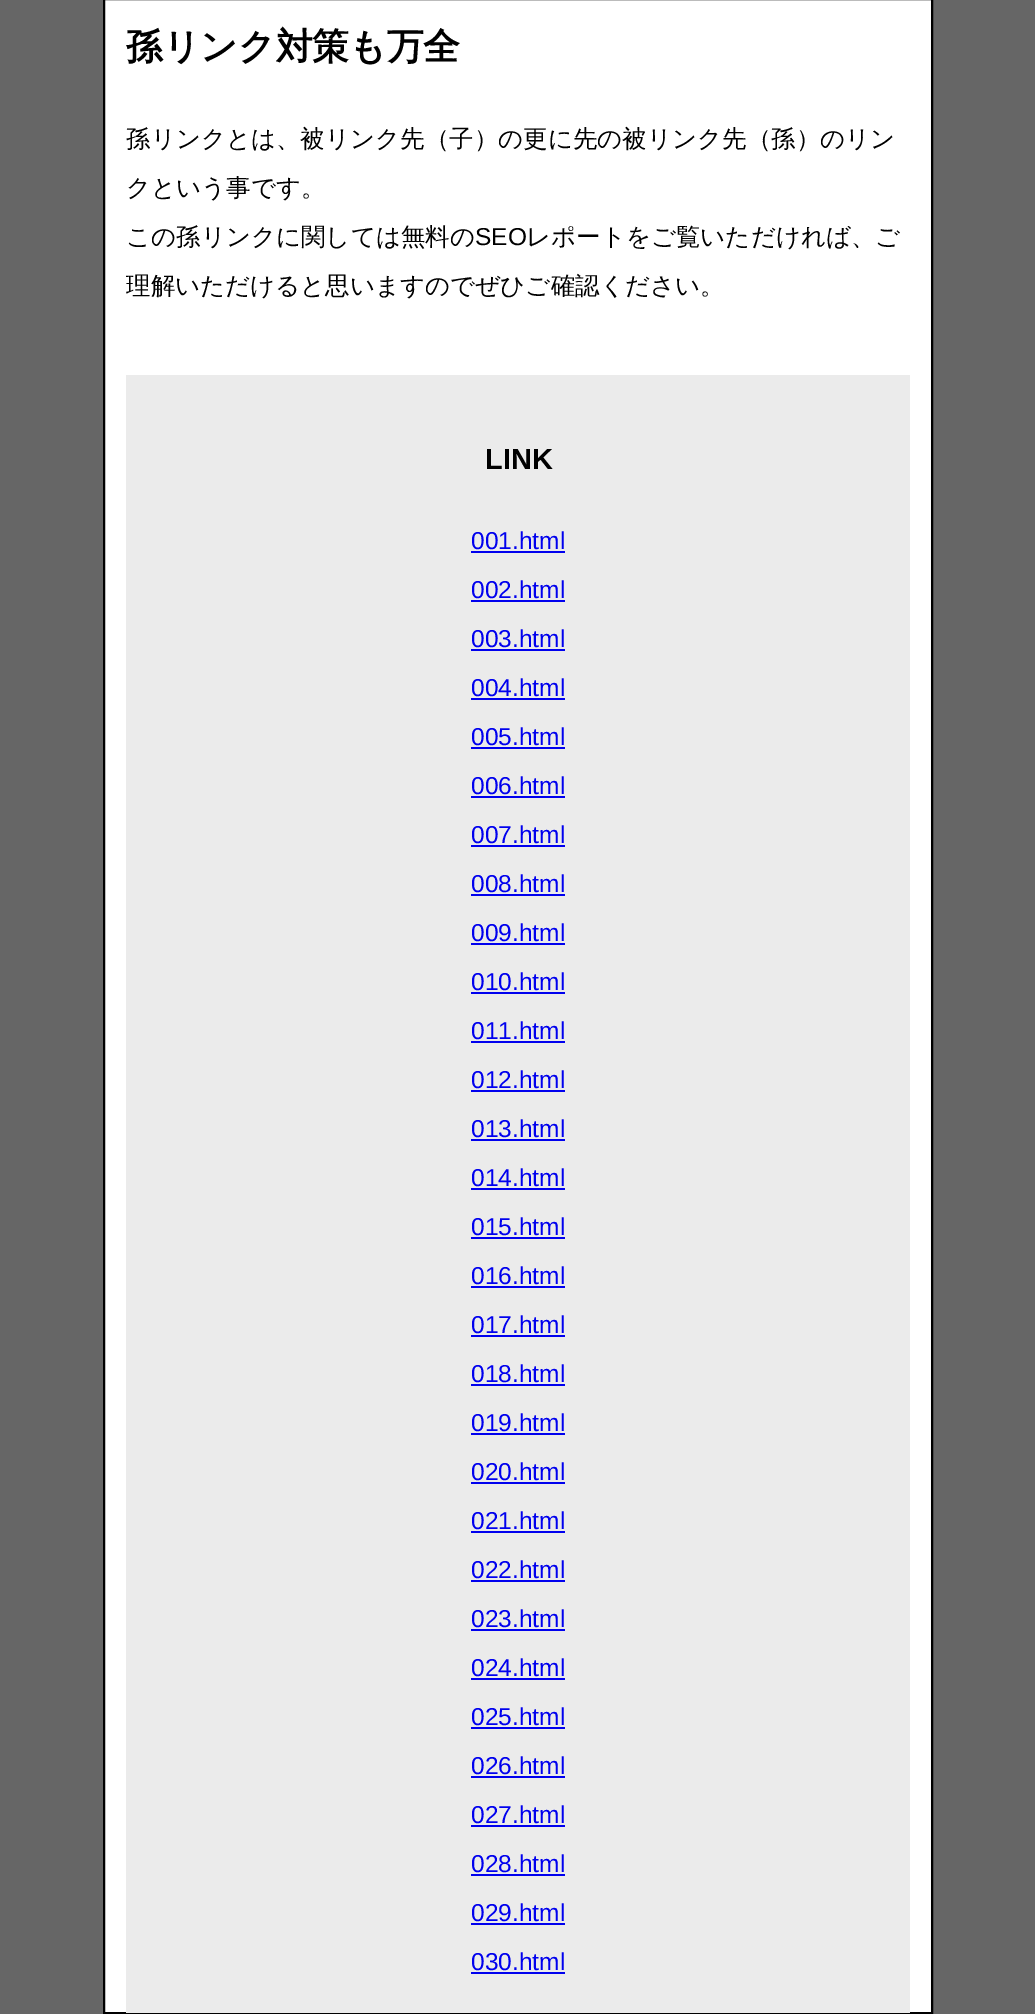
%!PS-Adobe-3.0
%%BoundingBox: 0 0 1035 2014
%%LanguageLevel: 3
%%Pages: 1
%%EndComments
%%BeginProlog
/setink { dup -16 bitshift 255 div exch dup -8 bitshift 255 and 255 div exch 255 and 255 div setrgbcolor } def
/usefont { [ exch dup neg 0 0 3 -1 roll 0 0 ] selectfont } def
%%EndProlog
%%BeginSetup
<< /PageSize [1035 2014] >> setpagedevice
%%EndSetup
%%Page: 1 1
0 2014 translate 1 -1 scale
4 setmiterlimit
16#666666 setink
0 0 1035 2014 rectfill
16#FFFFFF setink
104 -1 moveto 932 -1 lineto 932 2013 lineto 104 2013 lineto closepath gsave fill grestore
16#000000 setink
2 setlinewidth
stroke
/WenQuanYiZenHei-Bold 36.75 usefont
126 59 moveto (孫リンク対策も万全) show
/WenQuanYiZenHei-Medium 24.5 usefont
[
    [(孫リンクとは、被リンク先（子）の更に先の被リンク先（孫）のリン) 126 147]
    [(クという事です。) 126 196]
    [(この孫リンクに関しては無料の) 126 245]
] { aload pop moveto show } forall
/LiberationSans-Regular 24.5 usefont
475 245 moveto (SEO) show
/WenQuanYiZenHei-Medium 24.5 usefont
526 245 moveto (レポートをご覧いただければ、ご) show
126 294 moveto (理解いただけると思いますのでぜひご確認ください。) show
16#EBEBEB setink
126 375 784 1638 rectfill
/LiberationSans-Bold 29 usefont
16#000000 setink
485 469 moveto (LINK) show
/LiberationSans-Regular 24.5 usefont
16#0000EE setink
471 549 moveto (001.html) show
471 551 94 2 rectfill
471 598 moveto (002.html) show
471 600 94 2 rectfill
471 647 moveto (003.html) show
471 649 94 2 rectfill
471 696 moveto (004.html) show
471 698 94 2 rectfill
471 745 moveto (005.html) show
471 747 94 2 rectfill
471 794 moveto (006.html) show
471 796 94 2 rectfill
471 843 moveto (007.html) show
471 845 94 2 rectfill
471 892 moveto (008.html) show
471 894 94 2 rectfill
471 941 moveto (009.html) show
471 943 94 2 rectfill
471 990 moveto (010.html) show
471 992 94 2 rectfill
471 1039 moveto (011.html) show
471 1041 94 2 rectfill
471 1088 moveto (012.html) show
471 1090 94 2 rectfill
471 1137 moveto (013.html) show
471 1139 94 2 rectfill
471 1186 moveto (014.html) show
471 1188 94 2 rectfill
471 1235 moveto (015.html) show
471 1237 94 2 rectfill
471 1284 moveto (016.html) show
471 1286 94 2 rectfill
471 1333 moveto (017.html) show
471 1335 94 2 rectfill
471 1382 moveto (018.html) show
471 1384 94 2 rectfill
471 1431 moveto (019.html) show
471 1433 94 2 rectfill
471 1480 moveto (020.html) show
471 1482 94 2 rectfill
471 1529 moveto (021.html) show
471 1531 94 2 rectfill
471 1578 moveto (022.html) show
471 1580 94 2 rectfill
471 1627 moveto (023.html) show
471 1629 94 2 rectfill
471 1676 moveto (024.html) show
471 1678 94 2 rectfill
471 1725 moveto (025.html) show
471 1727 94 2 rectfill
471 1774 moveto (026.html) show
471 1776 94 2 rectfill
471 1823 moveto (027.html) show
471 1825 94 2 rectfill
471 1872 moveto (028.html) show
471 1874 94 2 rectfill
471 1921 moveto (029.html) show
471 1923 94 2 rectfill
471 1970 moveto (030.html) show
471 1972 94 2 rectfill
showpage
%%EOF
